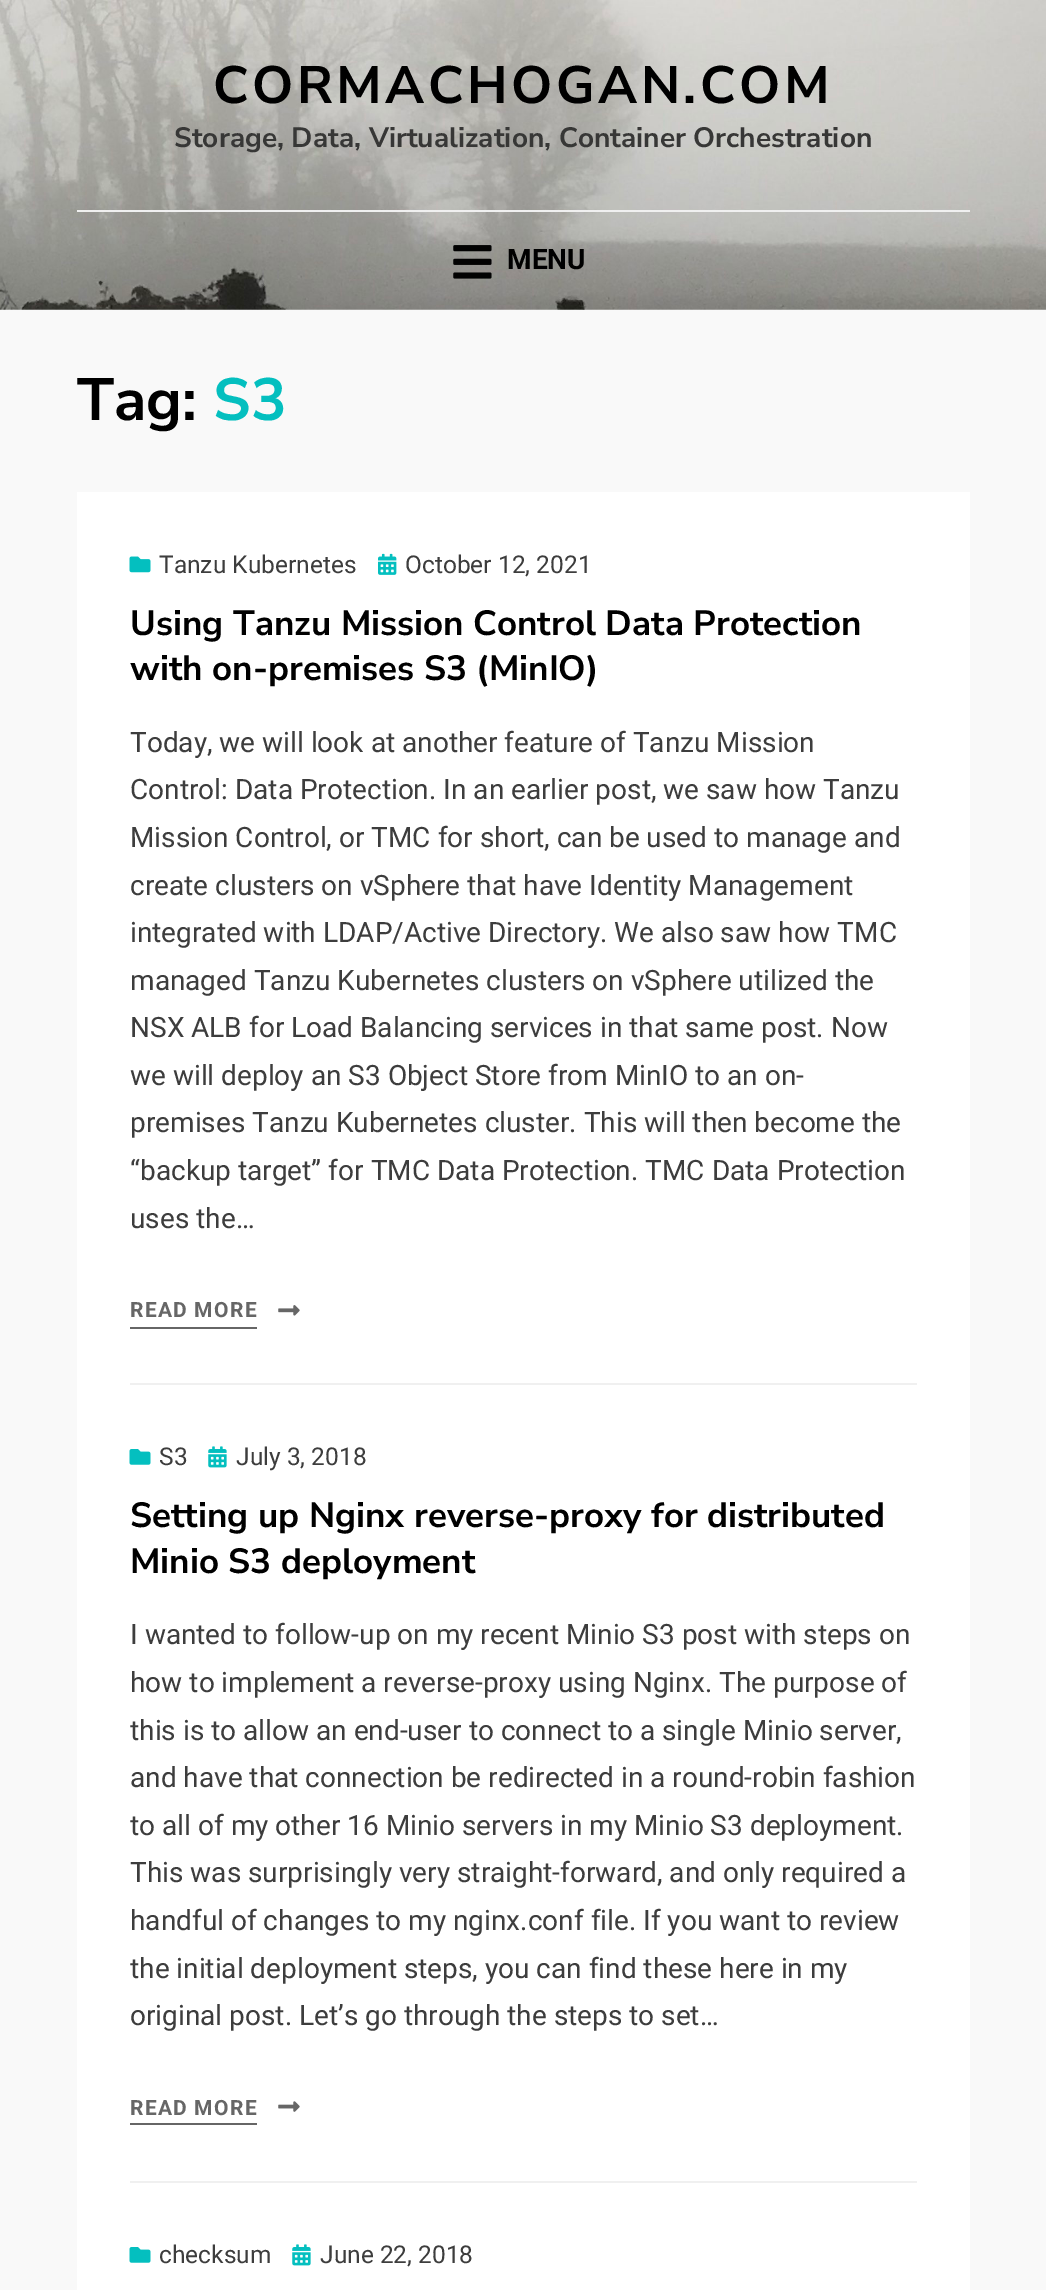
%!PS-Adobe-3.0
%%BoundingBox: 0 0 1046 2290
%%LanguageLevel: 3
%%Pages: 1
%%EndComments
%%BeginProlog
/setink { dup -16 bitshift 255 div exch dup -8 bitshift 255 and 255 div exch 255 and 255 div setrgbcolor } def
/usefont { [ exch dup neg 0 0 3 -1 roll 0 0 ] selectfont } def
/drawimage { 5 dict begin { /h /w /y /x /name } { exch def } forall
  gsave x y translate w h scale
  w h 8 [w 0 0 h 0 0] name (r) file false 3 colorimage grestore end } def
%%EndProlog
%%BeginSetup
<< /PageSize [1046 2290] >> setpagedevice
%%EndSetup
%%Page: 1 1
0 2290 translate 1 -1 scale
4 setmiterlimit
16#F9F9F9 setink
0 0 1046 2290 rectfill
(img1.raw) 0 0 1046 310 drawimage
/NunitoSans-Bold 52.5 usefont
16#000000 setink
213 103 moveto 3.5 0 (CORMACHOGAN.COM) ashow
/NunitoSans-Bold 28 usefont
16#373736 setink
174 147 moveto (Storage, Data, Virtualization, Container Orchestration) show
16#F0F0F0 setink
77 210 893 2 rectfill
(img2.raw) 453 245 39 34 drawimage
/Roboto-Bold 28 usefont
16#000000 setink
507 269 moveto (MENU) show
/NunitoSans-Bold 59.5 usefont
77 420 moveto (Tag:) show
16#04BFBF setink
213 420 moveto (S3) show
16#FFFFFF setink
77 492 893 1798 rectfill
(img3.raw) 129 556 22 17 drawimage
/Roboto-Regular 24.5 usefont
16#3D3D3D setink
159 573 moveto (Tanzu Kubernetes) show
(img4.raw) 378 553 19 22 drawimage
405 573 moveto (October 12, 2021) show
/NunitoSans-Bold 35 usefont
16#000000 setink
130 635 moveto (Using Tanzu Mission Control Data Protection) show
130 680 moveto (with on-premises S3 \(MinIO\)) show
/Roboto-Regular 28 usefont
16#3D3D3D setink
[
    [(Today, we will look at another feature of Tanzu Mission) 130 752]
    [(Control: Data Protection. In an earlier post, we saw how Tanzu) 130 799]
    [(Mission Control, or TMC for short, can be used to manage and) 130 847]
    [(create clusters on vSphere that have Identity Management) 130 895]
    [(integrated with LDAP/Active Directory. We also saw how TMC) 130 942]
    [(managed Tanzu Kubernetes clusters on vSphere utilized the) 130 990]
    [(NSX ALB for Load Balancing services in that same post. Now) 130 1037]
    [(we will deploy an S3 Object Store from MinIO to an on-) 130 1085]
    [(premises Tanzu Kubernetes cluster. This will then become the) 130 1132]
    [(“backup target” for TMC Data Protection. TMC Data Protection) 130 1180]
    [(uses the…) 130 1228]
] { aload pop moveto show } forall
/Roboto-Bold 21 usefont
16#666666 setink
130 1317 moveto 1.25 0 (READ MORE) ashow
(img5.raw) 278 1305 22 11 drawimage
130 1327 127 2 rectfill
16#F0F0F0 setink
130 1383 787 2 rectfill
(img6.raw) 129 1449 22 16 drawimage
/Roboto-Regular 24.5 usefont
16#3D3D3D setink
159 1465 moveto (S3) show
(img7.raw) 208 1446 19 22 drawimage
236 1465 moveto (July 3, 2018) show
/NunitoSans-Bold 35 usefont
16#000000 setink
130 1527 moveto (Setting up Nginx reverse-proxy for distributed) show
130 1573 moveto (Minio S3 deployment) show
/Roboto-Regular 28 usefont
16#3D3D3D setink
[
    [(I wanted to follow-up on my recent Minio S3 post with steps on) 130 1644]
    [(how to implement a reverse-proxy using Nginx. The purpose of) 130 1692]
    [(this is to allow an end-user to connect to a single Minio server,) 130 1740]
    [(and have that connection be redirected in a round-robin fashion) 130 1787]
    [(to all of my other 16 Minio servers in my Minio S3 deployment.) 130 1835]
    [(This was surprisingly very straight-forward, and only required a) 130 1882]
    [(handful of changes to my nginx.conf file. If you want to review) 130 1930]
    [(the initial deployment steps, you can find these here in my) 130 1978]
    [(original post. Let’s go through the steps to set…) 130 2025]
] { aload pop moveto show } forall
/Roboto-Bold 21 usefont
16#666666 setink
130 2115 moveto 1.25 0 (READ MORE) ashow
(img8.raw) 278 2101 22 11 drawimage
130 2123 127 2 rectfill
16#F0F0F0 setink
130 2181 787 2 rectfill
(img6.raw) 129 2247 22 16 drawimage
/Roboto-Regular 24.5 usefont
16#3D3D3D setink
159 2263 moveto (checksum) show
(img7.raw) 292 2244 19 22 drawimage
320 2263 moveto (June 22, 2018) show
showpage
%%EOF
